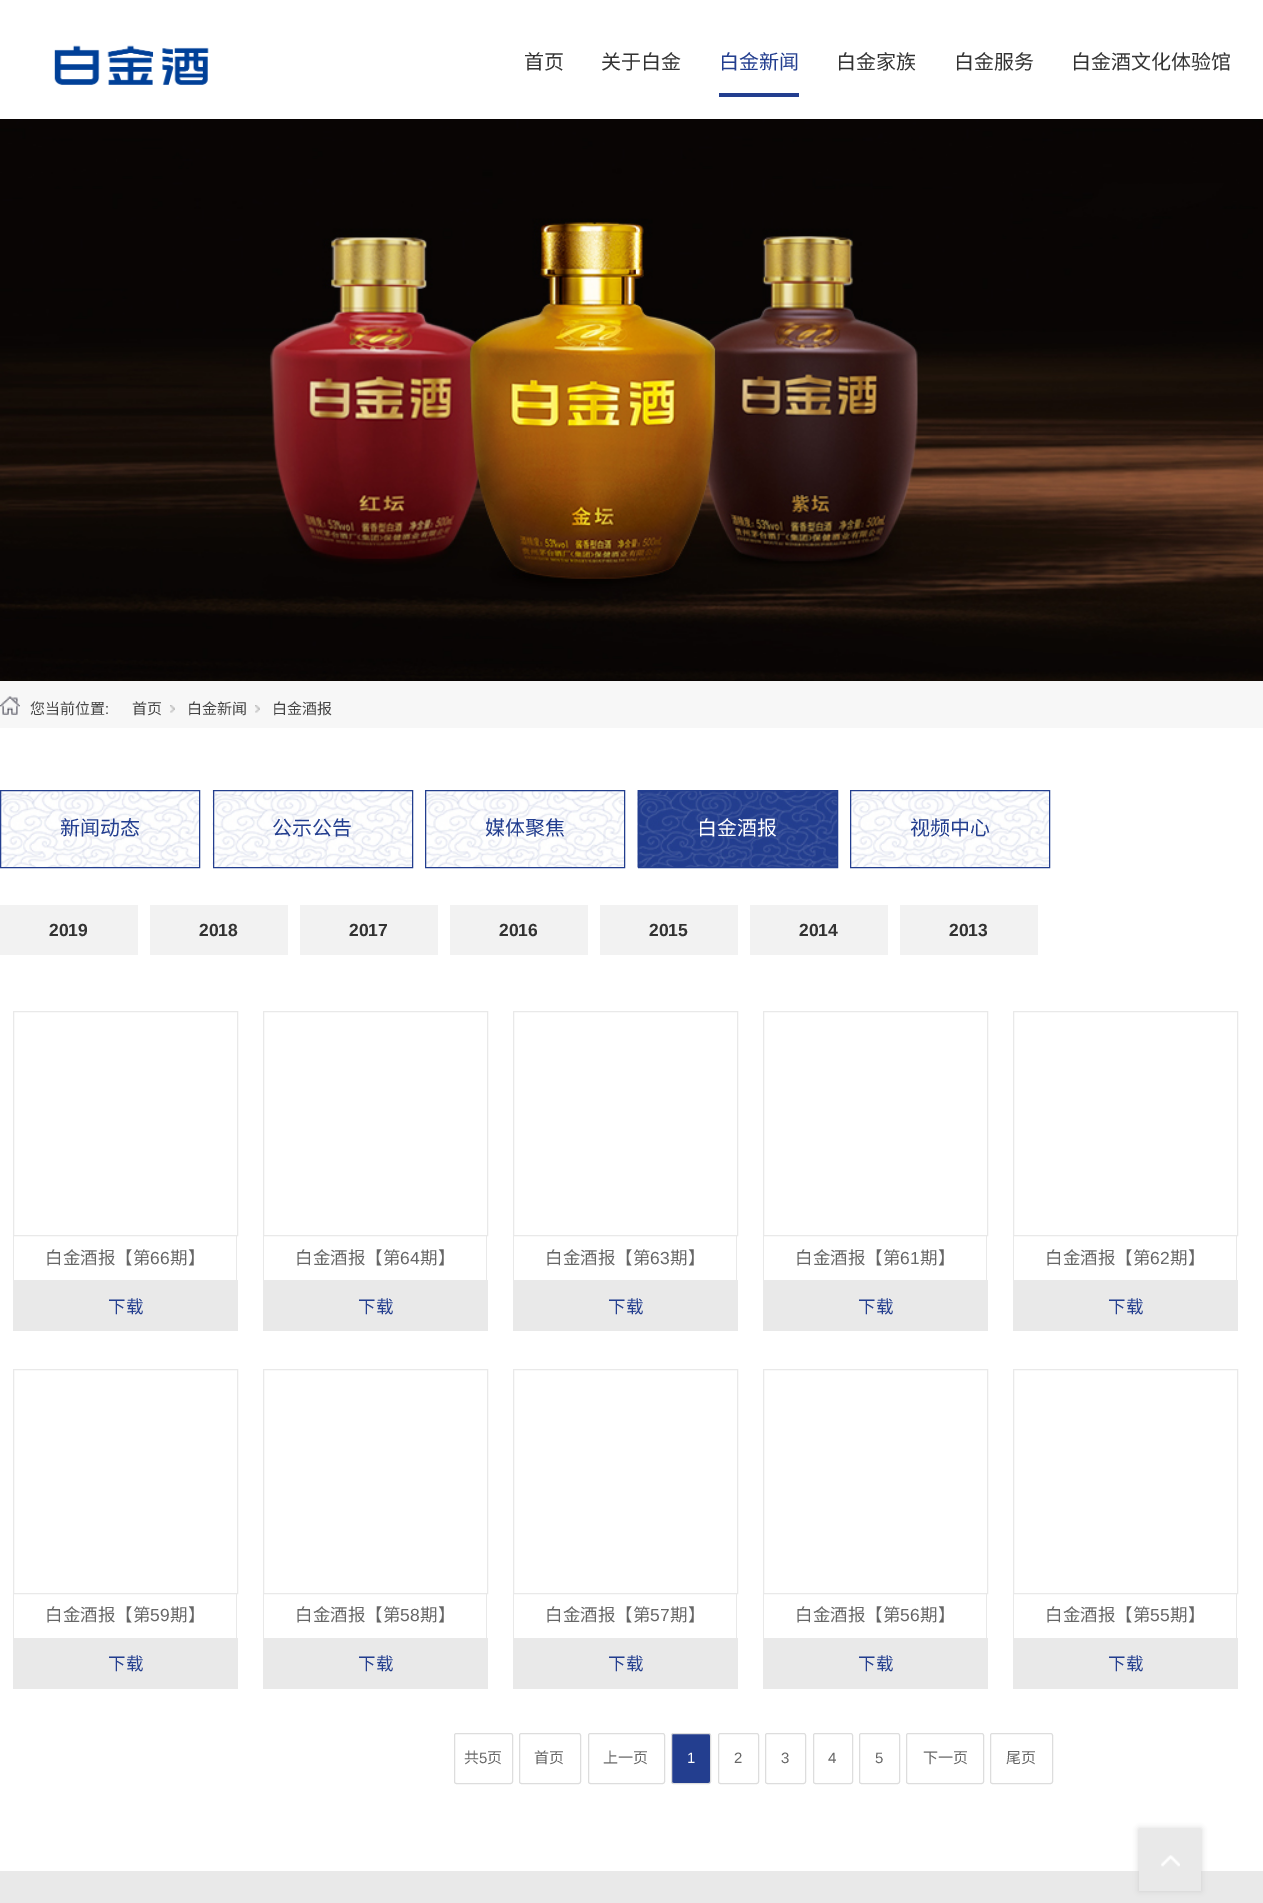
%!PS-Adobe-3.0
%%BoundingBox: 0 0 1263 1903
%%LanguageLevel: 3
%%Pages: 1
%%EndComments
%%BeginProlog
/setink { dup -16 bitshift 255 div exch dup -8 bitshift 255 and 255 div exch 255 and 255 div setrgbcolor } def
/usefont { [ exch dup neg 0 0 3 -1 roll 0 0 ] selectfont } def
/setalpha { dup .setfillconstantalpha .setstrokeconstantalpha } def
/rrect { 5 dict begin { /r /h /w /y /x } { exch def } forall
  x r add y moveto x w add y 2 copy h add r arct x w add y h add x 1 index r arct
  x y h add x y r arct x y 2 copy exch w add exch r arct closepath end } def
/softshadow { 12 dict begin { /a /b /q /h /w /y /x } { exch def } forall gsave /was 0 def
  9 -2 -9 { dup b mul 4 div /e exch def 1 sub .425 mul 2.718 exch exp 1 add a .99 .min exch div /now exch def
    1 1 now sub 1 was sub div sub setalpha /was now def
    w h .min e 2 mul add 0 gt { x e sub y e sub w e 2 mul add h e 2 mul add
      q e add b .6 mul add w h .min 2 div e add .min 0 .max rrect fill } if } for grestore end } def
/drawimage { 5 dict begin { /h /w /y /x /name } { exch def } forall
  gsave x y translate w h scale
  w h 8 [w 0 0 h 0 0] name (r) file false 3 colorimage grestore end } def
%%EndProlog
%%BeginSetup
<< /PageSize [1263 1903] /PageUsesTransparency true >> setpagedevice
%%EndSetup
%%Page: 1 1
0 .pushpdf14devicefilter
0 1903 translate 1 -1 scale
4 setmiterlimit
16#FFFFFF setink
0 0 1263 1903 rectfill
(img1.raw) 54 45 155 40 drawimage
/NotoSansCJKSC-Regular 20 usefont
16#333333 setink
524 69 moveto (首页) show
601 69 moveto (关于白金) show
16#233E8F setink
719 93 80 4 rectfill
719 69 moveto (白金新闻) show
16#333333 setink
[
    [(白金家族) 836 69]
    [(白金服务) 954 69]
    [(白金酒文化体验馆) 1071 69]
] { aload pop moveto show } forall
(img2.raw) 0 119 1263 562 drawimage
16#F7F7F7 setink
0 681 1263 47 rectfill
(img3.raw) 0 696 20 19 drawimage
/NotoSansCJKSC-Regular 15 usefont
16#444444 setink
30 714 moveto (您当前位置) show
/LiberationSans-Regular 15 usefont
105 714 moveto (:) show
/NotoSansCJKSC-Regular 15 usefont
132 714 moveto (首页) show
(img4.raw) 170 705 5 8 drawimage
187 714 moveto (白金新闻) show
(img4.raw) 255 705 5 8 drawimage
272 714 moveto (白金酒报) show
(img5.raw) 1 791 198 76 drawimage
16#233E8F setink
0.5 790.5 199 77 rectstroke
/NotoSansCJKSC-Regular 20 usefont
60 835 moveto (新闻动态) show
(img6.raw) 212 790 200 78 drawimage
213.5 790.5 199 77 rectstroke
272 835 moveto (公示公告) show
(img7.raw) 426 791 198 76 drawimage
425.5 790.5 199 77 rectstroke
485 835 moveto (媒体聚焦) show
(img8.raw) 637 790 200 78 drawimage
638.5 790.5 199 77 rectstroke
16#FFFFFF setink
697 835 moveto (白金酒报) show
(img9.raw) 851 791 198 76 drawimage
16#233E8F setink
850.5 790.5 199 77 rectstroke
910 835 moveto (视频中心) show
16#F2F2F2 setink
0 905 138 50 rectfill
/LiberationSans-Bold 17.5 usefont
16#333333 setink
49 936 moveto (2019) show
16#F2F2F2 setink
150 905 138 50 rectfill
16#333333 setink
199 936 moveto (2018) show
16#F2F2F2 setink
300 905 138 50 rectfill
16#333333 setink
349 936 moveto (2017) show
16#F2F2F2 setink
450 905 138 50 rectfill
16#333333 setink
499 936 moveto (2016) show
16#F2F2F2 setink
600 905 138 50 rectfill
16#333333 setink
649 936 moveto (2015) show
16#F2F2F2 setink
750 905 138 50 rectfill
16#333333 setink
799 936 moveto (2014) show
16#F2F2F2 setink
900 905 138 50 rectfill
16#333333 setink
949 936 moveto (2013) show
16#E9E9E9 setink
13.5 1011.5 224 224 rectstroke
[
    [236 1236 1 45 16#E9E9E9]
    [13 1280 225 51 16#E9E9E9]
    [13 1236 1 45 16#E9E9E9]
] { aload pop setink rectfill } forall
/NotoSansCJKSC-Regular 17.5 usefont
16#666666 setink
45 1264 moveto (白金酒报【第) show
/LiberationSans-Regular 17.5 usefont
150 1264 moveto (66) show
/NotoSansCJKSC-Regular 17.5 usefont
170 1264 moveto (期】) show
16#233E8F setink
108 1313 moveto (下载) show
16#E9E9E9 setink
263.5 1011.5 224 224 rectstroke
[
    [486 1236 1 45 16#E9E9E9]
    [263 1280 225 51 16#E9E9E9]
    [263 1236 1 45 16#E9E9E9]
] { aload pop setink rectfill } forall
16#666666 setink
295 1264 moveto (白金酒报【第) show
/LiberationSans-Regular 17.5 usefont
400 1264 moveto (64) show
/NotoSansCJKSC-Regular 17.5 usefont
420 1264 moveto (期】) show
16#233E8F setink
358 1313 moveto (下载) show
16#E9E9E9 setink
513.5 1011.5 224 224 rectstroke
[
    [736 1236 1 45 16#E9E9E9]
    [513 1280 225 51 16#E9E9E9]
    [513 1236 1 45 16#E9E9E9]
] { aload pop setink rectfill } forall
16#666666 setink
545 1264 moveto (白金酒报【第) show
/LiberationSans-Regular 17.5 usefont
650 1264 moveto (63) show
/NotoSansCJKSC-Regular 17.5 usefont
670 1264 moveto (期】) show
16#233E8F setink
608 1313 moveto (下载) show
16#E9E9E9 setink
763.5 1011.5 224 224 rectstroke
[
    [986 1236 1 45 16#E9E9E9]
    [763 1280 225 51 16#E9E9E9]
    [763 1236 1 45 16#E9E9E9]
] { aload pop setink rectfill } forall
16#666666 setink
795 1264 moveto (白金酒报【第) show
/LiberationSans-Regular 17.5 usefont
900 1264 moveto (61) show
/NotoSansCJKSC-Regular 17.5 usefont
920 1264 moveto (期】) show
16#233E8F setink
858 1313 moveto (下载) show
16#E9E9E9 setink
1013.5 1011.5 224 224 rectstroke
[
    [1236 1236 1 45 16#E9E9E9]
    [1013 1280 225 51 16#E9E9E9]
    [1013 1236 1 45 16#E9E9E9]
] { aload pop setink rectfill } forall
16#666666 setink
1045 1264 moveto (白金酒报【第) show
/LiberationSans-Regular 17.5 usefont
1150 1264 moveto (62) show
/NotoSansCJKSC-Regular 17.5 usefont
1170 1264 moveto (期】) show
16#233E8F setink
1108 1313 moveto (下载) show
16#E9E9E9 setink
13.5 1369.5 224 224 rectstroke
[
    [236 1594 1 45 16#E9E9E9]
    [13 1638 225 51 16#E9E9E9]
    [13 1594 1 45 16#E9E9E9]
] { aload pop setink rectfill } forall
16#666666 setink
45 1621 moveto (白金酒报【第) show
/LiberationSans-Regular 17.5 usefont
150 1621 moveto (59) show
/NotoSansCJKSC-Regular 17.5 usefont
170 1621 moveto (期】) show
16#233E8F setink
108 1670 moveto (下载) show
16#E9E9E9 setink
263.5 1369.5 224 224 rectstroke
[
    [486 1594 1 45 16#E9E9E9]
    [263 1638 225 51 16#E9E9E9]
    [263 1594 1 45 16#E9E9E9]
] { aload pop setink rectfill } forall
16#666666 setink
295 1621 moveto (白金酒报【第) show
/LiberationSans-Regular 17.5 usefont
400 1621 moveto (58) show
/NotoSansCJKSC-Regular 17.5 usefont
420 1621 moveto (期】) show
16#233E8F setink
358 1670 moveto (下载) show
16#E9E9E9 setink
513.5 1369.5 224 224 rectstroke
[
    [736 1594 1 45 16#E9E9E9]
    [513 1638 225 51 16#E9E9E9]
    [513 1594 1 45 16#E9E9E9]
] { aload pop setink rectfill } forall
16#666666 setink
545 1621 moveto (白金酒报【第) show
/LiberationSans-Regular 17.5 usefont
650 1621 moveto (57) show
/NotoSansCJKSC-Regular 17.5 usefont
670 1621 moveto (期】) show
16#233E8F setink
608 1670 moveto (下载) show
16#E9E9E9 setink
763.5 1369.5 224 224 rectstroke
[
    [986 1594 1 45 16#E9E9E9]
    [763 1638 225 51 16#E9E9E9]
    [763 1594 1 45 16#E9E9E9]
] { aload pop setink rectfill } forall
16#666666 setink
795 1621 moveto (白金酒报【第) show
/LiberationSans-Regular 17.5 usefont
900 1621 moveto (56) show
/NotoSansCJKSC-Regular 17.5 usefont
920 1621 moveto (期】) show
16#233E8F setink
858 1670 moveto (下载) show
16#E9E9E9 setink
1013.5 1369.5 224 224 rectstroke
[
    [1236 1594 1 45 16#E9E9E9]
    [1013 1638 225 51 16#E9E9E9]
    [1013 1594 1 45 16#E9E9E9]
] { aload pop setink rectfill } forall
16#666666 setink
1045 1621 moveto (白金酒报【第) show
/LiberationSans-Regular 17.5 usefont
1150 1621 moveto (55) show
/NotoSansCJKSC-Regular 17.5 usefont
1170 1621 moveto (期】) show
16#233E8F setink
1108 1670 moveto (下载) show
16#DDDDDD setink
454.5 1733.5 58 50 2 rrect stroke
/NotoSansCJKSC-Regular 15 usefont
16#666666 setink
464 1763 moveto (共) show
/LiberationSans-Regular 15 usefont
479 1763 moveto (5) show
/NotoSansCJKSC-Regular 15 usefont
487 1763 moveto (页) show
16#DDDDDD setink
519.5 1733.5 61 50 2 rrect stroke
16#666666 setink
534 1763 moveto (首页) show
16#DDDDDD setink
588.5 1733.5 76 50 2 rrect stroke
16#666666 setink
603 1763 moveto (上一页) show
16#233E8F setink
671.5 1733.5 39 50 2 rrect gsave fill grestore
16#DDDDDD setink
stroke
/LiberationSans-Regular 15 usefont
16#FFFFFF setink
687 1763 moveto (1) show
16#DDDDDD setink
718.5 1733.5 40 50 2 rrect stroke
16#666666 setink
734 1763 moveto (2) show
16#DDDDDD setink
765.5 1733.5 40 50 2 rrect stroke
16#666666 setink
781 1763 moveto (3) show
16#DDDDDD setink
813.5 1733.5 39 50 2 rrect stroke
16#666666 setink
828 1763 moveto (4) show
16#DDDDDD setink
859.5 1733.5 40 50 2 rrect stroke
16#666666 setink
875 1763 moveto (5) show
16#DDDDDD setink
906.5 1733.5 77 50 2 rrect stroke
/NotoSansCJKSC-Regular 15 usefont
16#666666 setink
923 1763 moveto (下一页) show
16#DDDDDD setink
990.5 1733.5 62 50 2 rrect stroke
16#666666 setink
1006 1763 moveto (尾页) show
16#E9E9E9 setink
0 1871 1263 32 rectfill
16#CDCDCD setink
1139 1829 62 62 0 3 1 softshadow
16#E9E9E9 setink
1139 1829 62 62 rectfill
(img10.raw) 1161 1855 19 12 drawimage
.poppdf14devicefilter showpage
%%EOF
